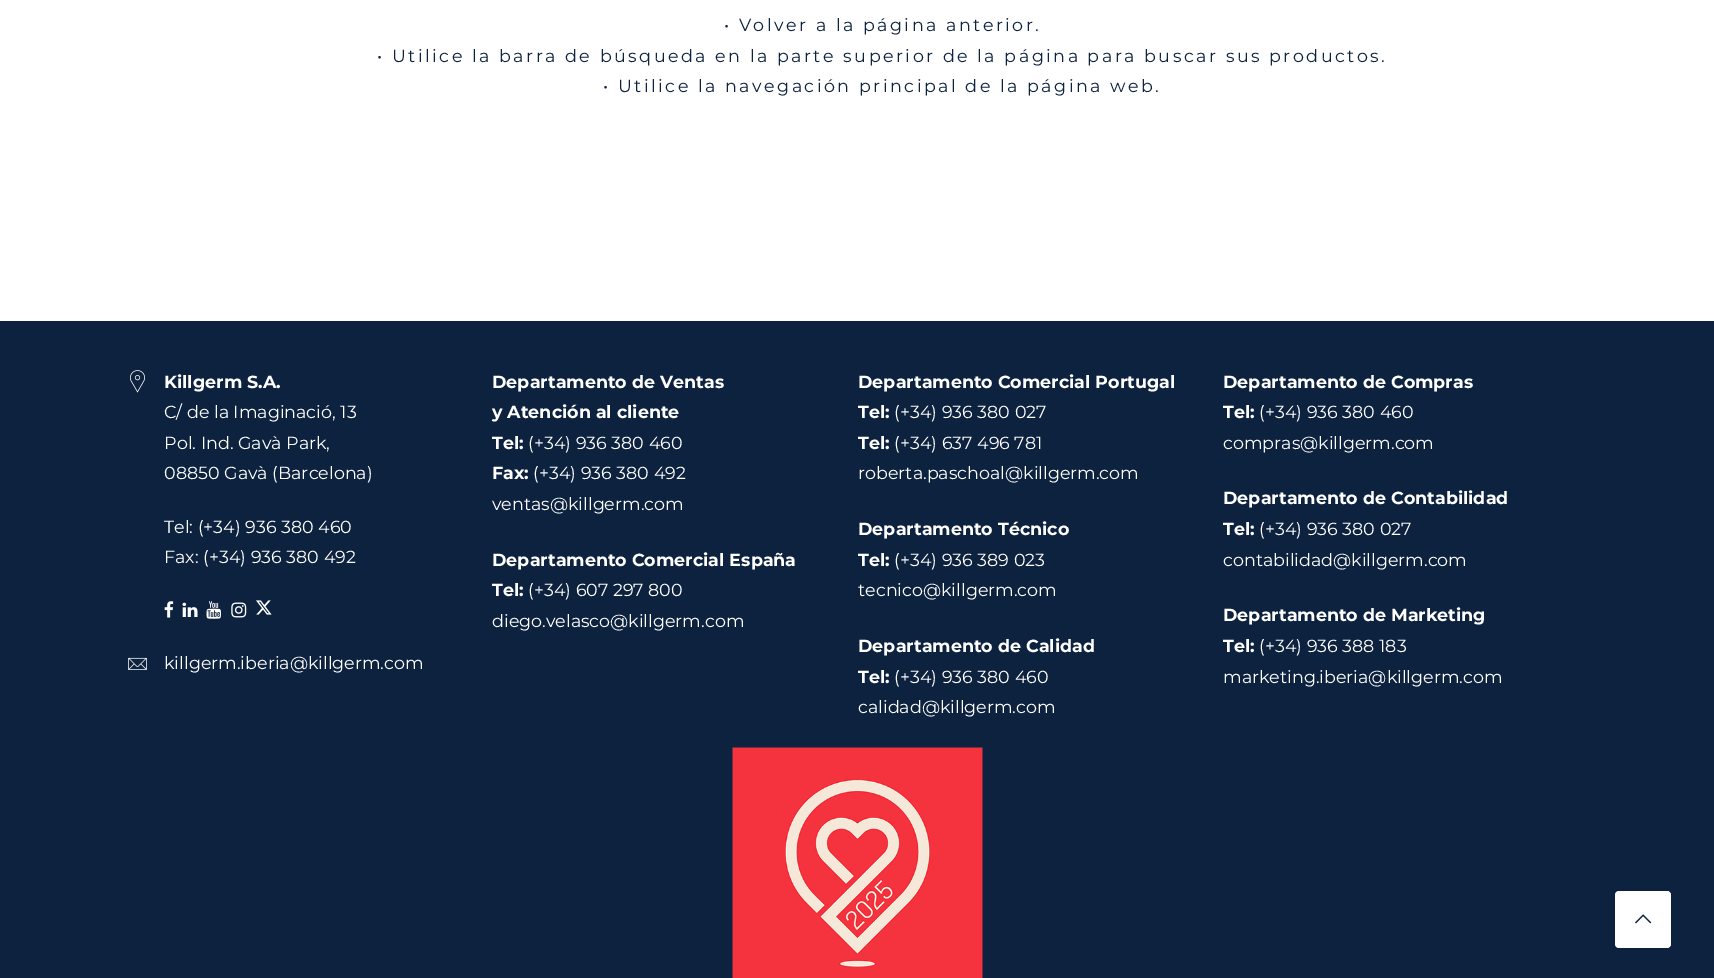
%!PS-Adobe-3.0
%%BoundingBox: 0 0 1714 978
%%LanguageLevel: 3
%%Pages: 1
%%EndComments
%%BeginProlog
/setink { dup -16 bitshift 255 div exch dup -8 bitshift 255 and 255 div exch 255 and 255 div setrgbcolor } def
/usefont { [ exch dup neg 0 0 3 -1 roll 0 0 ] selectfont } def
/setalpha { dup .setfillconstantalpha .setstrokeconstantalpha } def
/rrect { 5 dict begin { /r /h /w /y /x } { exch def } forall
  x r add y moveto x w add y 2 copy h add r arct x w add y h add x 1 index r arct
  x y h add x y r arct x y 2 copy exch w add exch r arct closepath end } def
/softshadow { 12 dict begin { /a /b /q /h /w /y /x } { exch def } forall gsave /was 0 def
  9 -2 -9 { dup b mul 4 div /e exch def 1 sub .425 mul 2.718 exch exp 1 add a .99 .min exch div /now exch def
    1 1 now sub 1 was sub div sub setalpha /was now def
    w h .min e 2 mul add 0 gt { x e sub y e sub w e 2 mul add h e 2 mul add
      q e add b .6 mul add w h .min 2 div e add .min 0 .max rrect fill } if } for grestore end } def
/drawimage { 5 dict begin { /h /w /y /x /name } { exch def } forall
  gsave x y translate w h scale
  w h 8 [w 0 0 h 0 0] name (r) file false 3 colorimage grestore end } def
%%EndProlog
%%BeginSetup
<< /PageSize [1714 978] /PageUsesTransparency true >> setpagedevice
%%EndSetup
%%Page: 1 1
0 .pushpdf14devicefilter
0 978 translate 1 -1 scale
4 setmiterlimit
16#FFFFFF setink
0 0 1714 978 rectfill
/Montserrat-Thin 17.5 usefont
16#0D223F setink
724 31 moveto 2.5 0 (• Volver a la página anterior.) ashow
377 62 moveto 2.5 0 (• Utilice la barra de búsqueda en la parte superior de la página para buscar sus productos.) ashow
603 92 moveto 2.5 0 (• Utilice la navegación principal de la página web.) ashow
0 321 1714 657 rectfill
(img1.raw) 130 370 15 23 drawimage
/Montserrat-Bold 17.5 usefont
16#FFFFFF setink
164 388 moveto (Killgerm S.A.) show
/Montserrat-Thin 17.5 usefont
[
    [(C/ de la Imaginació, 13) 164 418]
    [(Pol. Ind. Gavà Park,) 164 449]
    [(08850 Gavà \(Barcelona\)) 164 479]
    [(Tel: \(+34\) 936 380 460) 164 533]
    [(Fax: \(+34\) 936 380 492) 164 563]
] { aload pop moveto show } forall
(img2.raw) 164 601 10 17 drawimage
(img3.raw) 182 602 16 15 drawimage
(img4.raw) 206 601 15 18 drawimage
(img5.raw) 231 602 16 16 drawimage
(img6.raw) 256 600 16 15 drawimage
(img7.raw) 128 657 19 13 drawimage
164 669 moveto (killgerm.iberia@killgerm.com) show
/Montserrat-Bold 17.5 usefont
[
    [(Departamento de Ventas) 492 388]
    [(y Atención al cliente) 492 418]
    [(Tel:) 492 449]
] { aload pop moveto show } forall
/Montserrat-Thin 17.5 usefont
528 449 moveto (\(+34\) 936 380 460) show
/Montserrat-Bold 17.5 usefont
492 479 moveto (Fax:) show
/Montserrat-Thin 17.5 usefont
533 479 moveto (\(+34\) 936 380 492) show
492 510 moveto (ventas@killgerm.com) show
/Montserrat-Bold 17.5 usefont
492 566 moveto (Departamento Comercial España) show
492 596 moveto (Tel:) show
/Montserrat-Thin 17.5 usefont
528 596 moveto (\(+34\) 607 297 800) show
492 627 moveto (diego.velasco@killgerm.com) show
/Montserrat-Bold 17.5 usefont
858 388 moveto (Departamento Comercial Portugal) show
858 418 moveto (Tel:) show
/Montserrat-Thin 17.5 usefont
894 418 moveto (\(+34\) 936 380 027) show
/Montserrat-Bold 17.5 usefont
858 449 moveto (Tel:) show
/Montserrat-Thin 17.5 usefont
894 449 moveto (\(+34\) 637 496 781) show
858 479 moveto (roberta.paschoal@killgerm.com) show
/Montserrat-Bold 17.5 usefont
858 535 moveto (Departamento Técnico) show
858 566 moveto (Tel:) show
/Montserrat-Thin 17.5 usefont
894 566 moveto (\(+34\) 936 389 023) show
858 596 moveto (tecnico@killgerm.com) show
/Montserrat-Bold 17.5 usefont
858 652 moveto (Departamento de Calidad) show
858 683 moveto (Tel:) show
/Montserrat-Thin 17.5 usefont
894 683 moveto (\(+34\) 936 380 460) show
858 713 moveto (calidad@killgerm.com) show
/Montserrat-Bold 17.5 usefont
1223 388 moveto (Departamento de Compras) show
1223 418 moveto (Tel:) show
/Montserrat-Thin 17.5 usefont
1259 418 moveto (\(+34\) 936 380 460) show
1223 449 moveto (compras@killgerm.com) show
/Montserrat-Bold 17.5 usefont
1223 504 moveto (Departamento de Contabilidad) show
1223 535 moveto (Tel:) show
/Montserrat-Thin 17.5 usefont
1259 535 moveto (\(+34\) 936 380 027) show
1223 566 moveto (contabilidad@killgerm.com) show
/Montserrat-Bold 17.5 usefont
1223 621 moveto (Departamento de Marketing) show
1223 652 moveto (Tel:) show
/Montserrat-Thin 17.5 usefont
1259 652 moveto (\(+34\) 936 388 183) show
1223 683 moveto (marketing.iberia@killgerm.com) show
(img8.raw) 732 747 251 231 drawimage
16#000000 setink
1615 891 56 57 4 2 0.2 softshadow
16#FFFFFF setink
1615 891 56 57 4 rrect fill
(img9.raw) 1635 914 17 10 drawimage
.poppdf14devicefilter showpage
%%EOF
